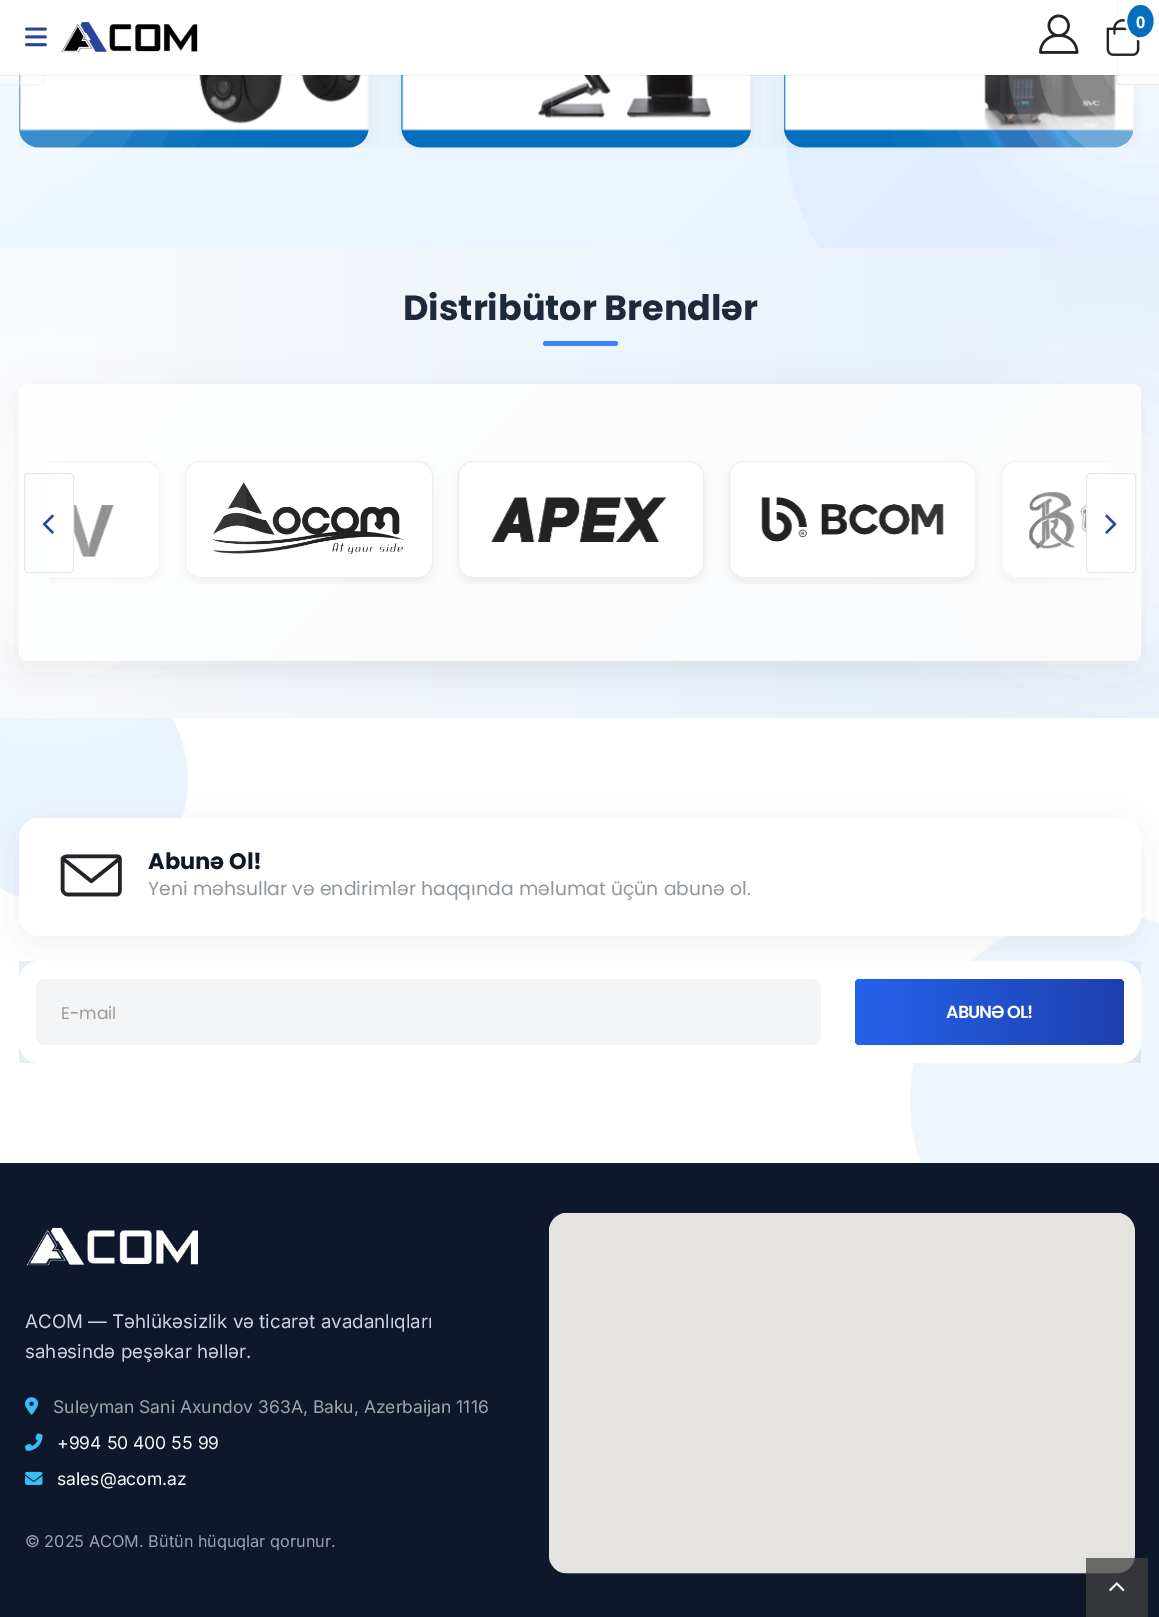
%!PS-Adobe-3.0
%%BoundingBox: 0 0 1159 1617
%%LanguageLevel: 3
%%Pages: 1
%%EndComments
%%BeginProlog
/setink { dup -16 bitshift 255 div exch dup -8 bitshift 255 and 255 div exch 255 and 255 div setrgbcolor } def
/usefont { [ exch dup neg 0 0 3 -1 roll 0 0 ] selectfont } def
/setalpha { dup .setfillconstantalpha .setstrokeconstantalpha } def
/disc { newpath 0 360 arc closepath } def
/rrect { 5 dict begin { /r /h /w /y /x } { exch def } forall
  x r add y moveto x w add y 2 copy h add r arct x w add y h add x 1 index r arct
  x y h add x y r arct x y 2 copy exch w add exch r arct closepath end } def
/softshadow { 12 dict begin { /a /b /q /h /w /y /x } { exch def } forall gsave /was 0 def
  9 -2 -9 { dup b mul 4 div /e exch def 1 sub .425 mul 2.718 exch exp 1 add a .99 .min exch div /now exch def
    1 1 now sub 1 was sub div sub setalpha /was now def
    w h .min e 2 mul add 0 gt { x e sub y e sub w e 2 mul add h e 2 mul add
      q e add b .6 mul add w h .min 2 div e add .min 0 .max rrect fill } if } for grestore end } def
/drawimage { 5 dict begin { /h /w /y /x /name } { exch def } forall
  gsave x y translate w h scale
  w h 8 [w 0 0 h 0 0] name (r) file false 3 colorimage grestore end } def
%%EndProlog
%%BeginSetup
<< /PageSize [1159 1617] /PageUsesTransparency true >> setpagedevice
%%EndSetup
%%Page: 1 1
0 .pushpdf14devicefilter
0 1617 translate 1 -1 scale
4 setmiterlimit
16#FFFFFF setink
0 0 1159 1617 rectfill
gsave 0 75 moveto 1159 75 lineto 1159 248 lineto 0 248 lineto closepath clip newpath
<< /ShadingType 2 /ColorSpace /DeviceRGB /Coords [161 -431 999 408] /Extend [true true] /Function << /FunctionType 2 /Domain [0 1] /C0 [0.941 0.98 1] /C1 [0.914 0.949 1] /N 1 >> >> shfill grestore
gsave 0 248 moveto 1159 248 lineto 1159 718 lineto 0 718 lineto closepath clip newpath
<< /ShadingType 2 /ColorSpace /DeviceRGB /Coords [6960 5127 0 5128] /Extend [true true] /Function << /FunctionType 3 /Domain [0 1] /Functions [<< /FunctionType 2 /Domain [0 1] /C0 [0.976 0.98 0.984] /C1 [0.878 0.949 0.996] /N 1 >> << /FunctionType 2 /Domain [0 1] /C0 [0.878 0.949 0.996] /C1 [0.953 0.957 0.965] /N 1 >> << /FunctionType 2 /Domain [0 1] /C0 [0.953 0.957 0.965] /C1 [0.859 0.918 0.996] /N 1 >> << /FunctionType 2 /Domain [0 1] /C0 [0.859 0.918 0.996] /C1 [0.976 0.98 0.984] /N 1 >>] /Bounds [0.25 0.5 0.75] /Encode [0 1 0 1 0 1 0 1] >> >> shfill grestore
16#000000 setink
19 396 1122 278 9 19 0.07 softshadow
gsave
0 0 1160 248 rectclip
0.07 setalpha
16#60A5FA setink
1035 123 250 disc fill
grestore
gsave
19 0 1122 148 rectclip
19 -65 350 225 20 15 0.06 softshadow
grestore
16#FFFFFF setink
19 -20 350 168 20 rrect fill
(img5.raw) 19 75 350 73 drawimage
gsave
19 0 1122 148 rectclip
16#000000 setink
401 -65 350 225 20 15 0.06 softshadow
grestore
401 -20 350 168 20 rrect fill
(img6.raw) 401 75 350 73 drawimage
gsave
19 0 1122 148 rectclip
16#000000 setink
784 -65 350 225 20 15 0.06 softshadow
grestore
784 -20 350 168 20 rrect fill
(img7.raw) 784 75 350 73 drawimage
gsave
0 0 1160 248 rectclip
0 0 moveto 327 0 lineto 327 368 lineto 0 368 lineto closepath -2 -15 moveto 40 -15 lineto 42 -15 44 -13 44 -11 curveto 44 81 lineto 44 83 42 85 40 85 curveto -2 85 lineto -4 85 -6 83 -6 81 curveto -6 -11 lineto -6 -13 -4 -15 -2 -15 curveto closepath eoclip newpath
-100 -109 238 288 98 62.5 0.3 softshadow
grestore
0.5 setalpha
0 -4 moveto 40 -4 lineto 42 -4 44 -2 44 0 curveto 44 81 lineto 44 83 42 85 40 85 curveto 0 85 lineto closepath fill
16#E7E7E7 setink
-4.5 -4.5 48 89 3.5 rrect stroke
gsave
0 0 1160 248 rectclip
1 setalpha
16#FFFFFF setink
1023 -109 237 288 98 62.5 0.6 softshadow
grestore
1 setalpha
16#FFFFFF setink
1120 -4 moveto 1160 -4 lineto 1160 85 lineto 1120 85 lineto 1118 85 1116 83 1116 81 curveto 1116 0 lineto 1116 -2 1118 -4 1120 -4 curveto closepath fill
16#E7E7E7 setink
1116.5 -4.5 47 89 3.5 rrect stroke
0.06 setalpha
16#000000 setink
0 75 1159 1 rectfill
1 setalpha
16#FFFFFF setink
43 0 1074 75 rectfill
(img1.raw) 25 27 22 20 drawimage
(img2.raw) 61 22 137 31 drawimage
(img3.raw) 1039 14 40 40 drawimage
(img4.raw) 1106 19 34 37 drawimage
2.5 setlinewidth
1140.5 4 moveto 1148.5 4 1155 11.5 1155 21 curveto 1155 31 1148.5 39 1140.5 39 curveto 1132.5 39 1126 31 1126 21 curveto 1126 11.5 1132.5 4 1140.5 4 curveto closepath stroke
16#036EBC setink
1140.5 5 moveto 1147.5 5 1153.5 12 1153.5 21 curveto 1153.5 30 1147.5 37 1140.5 37 curveto 1133.5 37 1127.5 30 1127.5 21 curveto 1127.5 12 1133.5 5 1140.5 5 curveto closepath fill
/OpenSans-Bold 16.25 usefont
16#FFFFFF setink
1136 28 moveto (0) show
gsave 19 384 1122 277 9 rrect clip newpath
<< /ShadingType 2 /ColorSpace /DeviceRGB /Coords [230 173 930 873] /Extend [true true] /Function << /FunctionType 2 /Domain [0 1] /C0 [1 1 1] /C1 [0.976 0.98 0.984] /N 1 >> >> shfill grestore
gsave
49 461 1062 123 rectclip
16#000000 setink
-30 466 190 117 15 5 0.05 softshadow
grestore
49 461 moveto 145 461 lineto 153.5 461 160 467.5 160 476 curveto 160 563 lineto 160 571.5 153.5 578 145 578 curveto 49 578 lineto closepath fill
gsave
49 461 1062 123 rectclip
16#EEEEEE setink
1 setlinewidth
-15.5 461.5 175 116 14.5 rrect stroke
grestore
(img10.raw) 74 505 40 52 drawimage
gsave
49 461 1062 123 rectclip
16#000000 setink
185 466 248 117 15 5 0.05 softshadow
grestore
185.5 461.5 247 116 14.5 rrect gsave fill grestore
16#EEEEEE setink
1 setlinewidth
stroke
(img11.raw) 212 482 192 72 drawimage
gsave
0 718 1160 445 rectclip
16#EBF3FE setink
63 780 125 disc fill
grestore
16#FFFFFF setink
-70 379 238 287 98 62.5 0.6 softshadow
16#E7E7E7 setink
24.5 473.5 49 99 3.5 rrect stroke
(img8.raw) 42 514 12 20 drawimage
gsave
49 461 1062 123 rectclip
16#000000 setink
729 466 247 117 15 5 0.05 softshadow
grestore
16#FFFFFF setink
729.5 461.5 246 116 14.5 rrect gsave fill grestore
16#EEEEEE setink
stroke
(img13.raw) 761 497 183 45 drawimage
gsave
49 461 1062 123 rectclip
16#000000 setink
1001 466 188 117 15 5 0.05 softshadow
grestore
16#FFFFFF setink
1016 461 moveto 1111 461 lineto 1111 578 lineto 1016 578 lineto 1007.5 578 1001 571.5 1001 563 curveto 1001 476 lineto 1001 467.5 1007.5 461 1016 461 curveto closepath fill
gsave
49 461 1062 123 rectclip
16#EEEEEE setink
1001.5 461.5 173 116 14.5 rrect stroke
grestore
(img14.raw) 1029 492 57 57 drawimage
993 379 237 287 98 62.5 0.6 softshadow
1086.5 473.5 49 99 3.5 rrect gsave fill grestore
16#E7E7E7 setink
stroke
(img9.raw) 1105 514 12 20 drawimage
gsave
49 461 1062 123 rectclip
16#000000 setink
458 466 246 117 15 5 0.05 softshadow
grestore
16#FFFFFF setink
458.5 461.5 245 116 14.5 rrect gsave fill grestore
16#EEEEEE setink
stroke
(img12.raw) 491 497 176 45 drawimage
/Poppins-Bold 35 usefont
16#1E293B setink
403 320 moveto (Distribütor Brendlər) show
16#3B82F6 setink
543 341 75 5 2.5 rrect fill
gsave
19 961 112 102 rectclip
16#EBF3FE setink
56 999 75 disc fill
grestore
gsave
1029 961 112 102 rectclip
16#EFF6FF setink
1104 1025 75 disc fill
grestore
16#0F172A setink
0 1163 1159 454 rectfill
(img20.raw) 549 1212 586 362 drawimage
gsave
0 718 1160 445 rectclip
0.1 setalpha
16#60A5FA setink
1097.5 1100.5 187.5 disc fill
grestore
16#000000 setink
19 828 1122 118 20 19 0.05 softshadow
16#FFFFFF setink
19 818 1122 118 20 rrect fill
(img15.raw) 60 854 62 43 drawimage
/Poppins-Bold 22.5 usefont
16#111827 setink
148 869 moveto (Abunə Ol!) show
/Poppins-Regular 18.75 usefont
16#90969A setink
148 895 moveto 0.1 0 (Yeni məhsullar və endirimlər haqqında məlumat üçün abunə ol.) ashow
gsave
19 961 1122 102 rectclip
16#000000 setink
19 971 1122 102 20 19 0.05 softshadow
grestore
16#FFFFFF setink
19 961 1122 102 20 rrect fill
16#F3F4F6 setink
36 979 785 66 9 rrect fill
/Poppins-Regular 17 usefont
16#999999 setink
61 1019 moveto (E-mail) show
gsave 855 979 269 66 5 rrect clip newpath
<< /ShadingType 2 /ColorSpace /DeviceRGB /Coords [855 1012 1124 1012] /Extend [true true] /Function << /FunctionType 2 /Domain [0 1] /C0 [0.145 0.388 0.922] /C1 [0.118 0.251 0.686] /N 1 >> >> shfill grestore
/Poppins-SemiBold 17.5 usefont
16#FFFFFF setink
946 1018 moveto -0.9 0 (ABUNƏ OL!) ashow
(img16.raw) 26 1227 172 39 drawimage
/Inter-Regular 18.75 usefont
16#CBD5E1 setink
25 1328 moveto (ACOM — Təhlükəsizlik və ticarət avadanlıqları) show
25 1358 moveto (sahəsində peşəkar həllər.) show
(img17.raw) 25 1397 14 18 drawimage
/Inter-Regular 17.5 usefont
16#A1A1AA setink
53 1413 moveto (Suleyman Sani Axundov 363A, Baku, Azerbaijan 1116) show
(img18.raw) 25 1433 18 18 drawimage
16#F8FAFC setink
57 1449 moveto (+994 50 400 55 99) show
(img19.raw) 25 1471 18 14 drawimage
57 1485 moveto (sales@acom.az) show
/Inter-Regular 16.25 usefont
16#94A3B8 setink
25 1547 moveto (© 2025 ACOM. Bütün hüquqlar qorunur.) show
0.75 setalpha
16#404040 setink
1086 1558 62 59 rectfill
1 setalpha
(img21.raw) 1109 1582 16 10 drawimage
.poppdf14devicefilter showpage
%%EOF
